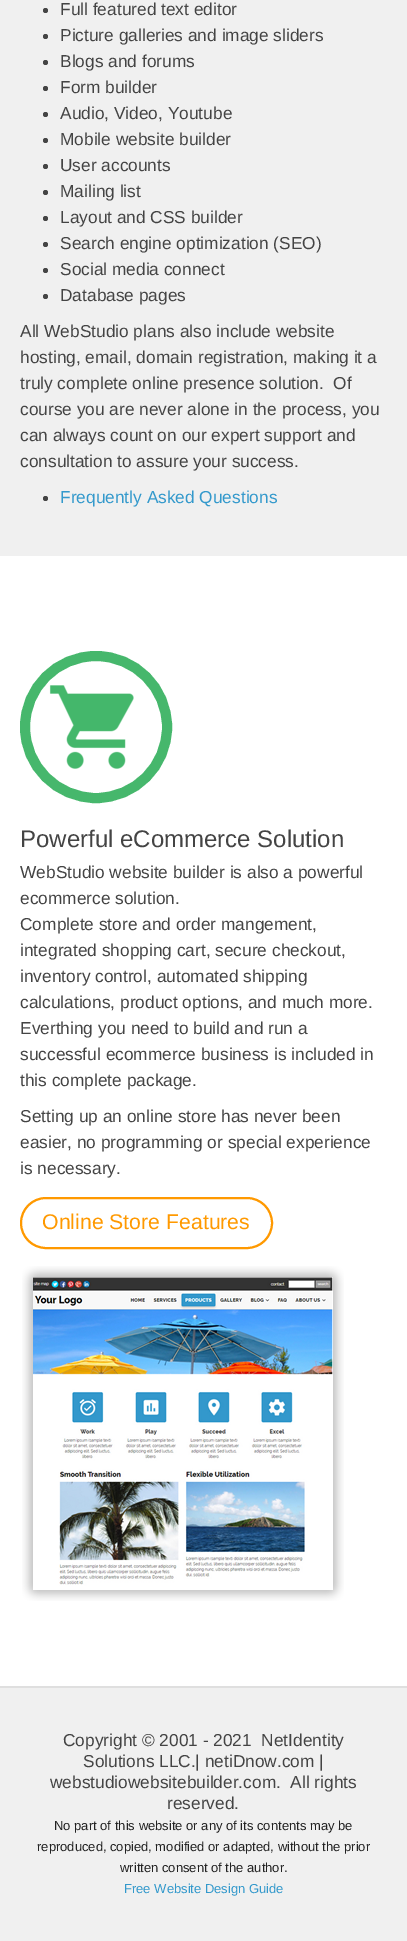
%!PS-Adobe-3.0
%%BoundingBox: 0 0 407 1941
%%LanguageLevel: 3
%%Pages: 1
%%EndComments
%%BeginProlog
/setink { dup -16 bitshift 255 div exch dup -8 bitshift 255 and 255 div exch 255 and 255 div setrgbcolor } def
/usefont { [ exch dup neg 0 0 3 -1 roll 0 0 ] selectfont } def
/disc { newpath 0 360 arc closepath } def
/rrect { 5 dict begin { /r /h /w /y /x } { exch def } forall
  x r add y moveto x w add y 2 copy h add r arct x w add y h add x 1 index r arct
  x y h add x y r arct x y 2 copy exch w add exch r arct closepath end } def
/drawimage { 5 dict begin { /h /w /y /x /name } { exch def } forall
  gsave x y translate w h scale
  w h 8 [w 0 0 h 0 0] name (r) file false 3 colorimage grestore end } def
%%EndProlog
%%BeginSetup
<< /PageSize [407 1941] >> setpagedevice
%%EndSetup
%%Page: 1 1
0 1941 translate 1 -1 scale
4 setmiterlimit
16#FFFFFF setink
0 0 407 1941 rectfill
16#F0F0F0 setink
0 0 407 556 rectfill
16#444444 setink
45.5 10.5 2.5 disc fill
/LiberationSans-Regular 17.3 usefont
60 15 moveto (Full featured text editor) show
45.5 36.5 2.5 disc fill
60 41 moveto (Picture galleries and image sliders) show
45.5 62.5 2.5 disc fill
60 67 moveto (Blogs and forums) show
45.5 88.5 2.5 disc fill
60 93 moveto (Form builder) show
45.5 114.5 2.5 disc fill
60 119 moveto (Audio, Video, Youtube) show
45.5 140.5 2.5 disc fill
60 145 moveto (Mobile website builder) show
45.5 166.5 2.5 disc fill
60 171 moveto (User accounts) show
45.5 192.5 2.5 disc fill
60 197 moveto (Mailing list) show
45.5 218.5 2.5 disc fill
60 223 moveto (Layout and CSS builder) show
45.5 244.5 2.5 disc fill
60 249 moveto (Search engine optimization \(SEO\)) show
45.5 270.5 2.5 disc fill
60 275 moveto (Social media connect) show
45.5 296.5 2.5 disc fill
[
    [(Database pages) 60 301]
    [(All WebStudio plans also include website) 20 337]
    [(hosting, email, domain registration, making it a) 20 363]
    [(truly complete online presence solution.  Of) 20 389]
    [(course you are never alone in the process, you) 20 415]
    [(can always count on our expert support and) 20 441]
    [(consultation to assure your success.) 20 467]
] { aload pop moveto show } forall
45.5 498.5 2.5 disc fill
16#3399CC setink
60 503 moveto (Frequently Asked Questions) show
16#46B76C setink
10 setlinewidth
96 727 71 disc stroke
(img1.raw) 49 685 85 84 drawimage
/LiberationSans-Regular 24 usefont
16#444444 setink
20 847 moveto (Powerful eCommerce Solution) show
/LiberationSans-Regular 17.3 usefont
[
    [(WebStudio website builder is also a powerful) 20 878]
    [(ecommerce solution.) 20 904]
    [(Complete store and order mangement,) 20 930]
    [(integrated shopping cart, secure checkout,) 20 956]
    [(inventory control, automated shipping) 20 982]
    [(calculations, product options, and much more.) 20 1008]
    [(Everthing you need to build and run a) 20 1034]
    [(successful ecommerce business is included in) 20 1060]
    [(this complete package.) 20 1086]
    [(Setting up an online store has never been) 20 1122]
    [(easier, no programming or special experience) 20 1148]
    [(is necessary.) 20 1174]
] { aload pop moveto show } forall
16#FF9900 setink
2 setlinewidth
21 1198 251 50 25 rrect stroke
/LiberationSans-Regular 21.25 usefont
42 1229 moveto (Online Store Features) show
(img2.raw) 22 1266 322 335 drawimage
16#F0F0F0 setink
0 1688 407 253 rectfill
16#DFDFDF setink
0 1686 407 2 rectfill
/LiberationSans-Regular 17.3 usefont
16#444444 setink
[
    [(Copyright © 2001 - 2021  NetIdentity) 63 1746]
    [(Solutions LLC.| netiDnow.com |) 83 1767]
    [(webstudiowebsitebuilder.com.  All rights) 50 1788]
    [(reserved.) 167 1809]
] { aload pop moveto show } forall
/LiberationSans-Regular 13 usefont
16#222222 setink
[
    [(No part of this website or any of its contents may be) 54 1830]
    [(reproduced, copied, modified or adapted, without the prior) 37 1851]
    [(written consent of the author.) 120 1872]
] { aload pop moveto show } forall
16#3399CC setink
124 1893 moveto (Free Website Design Guide) show
showpage
%%EOF
